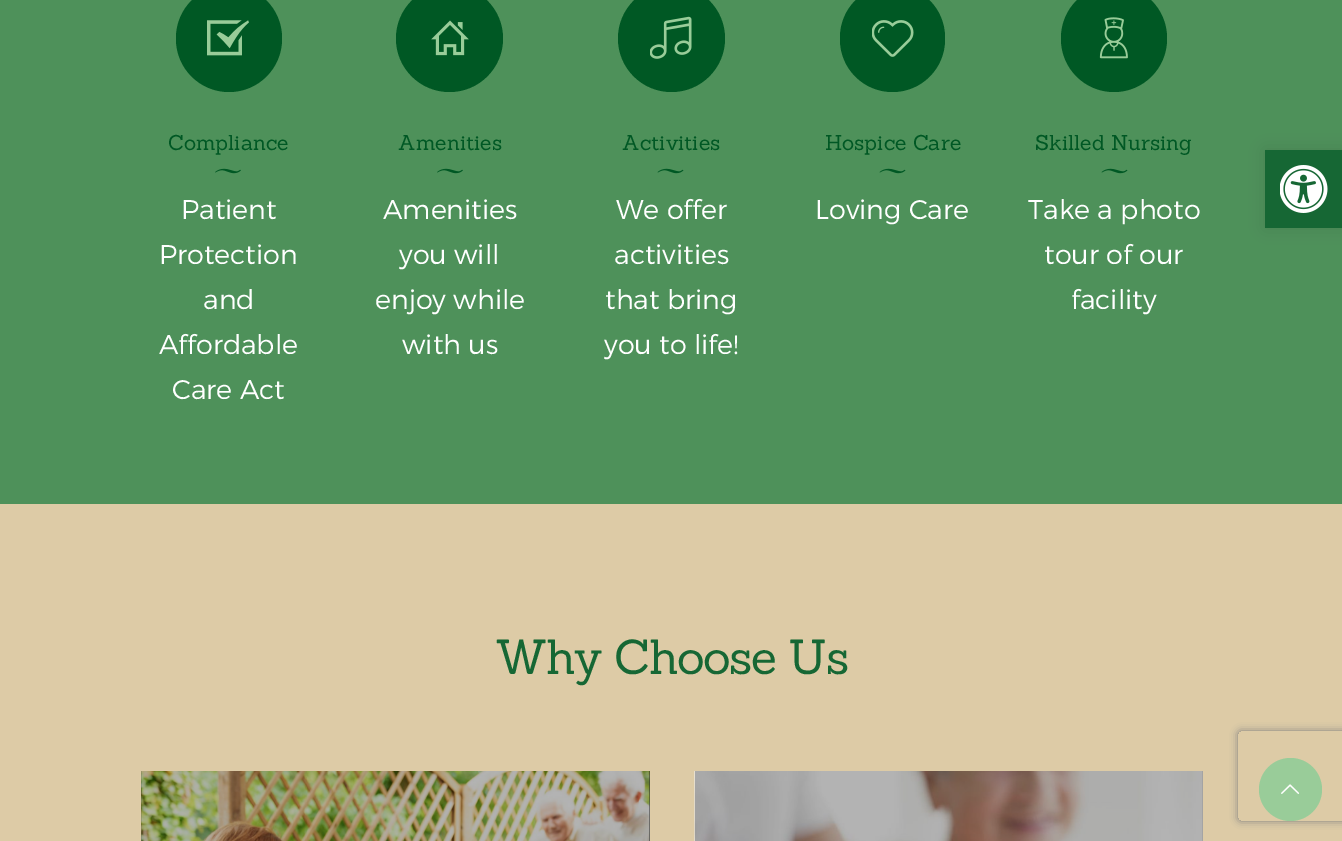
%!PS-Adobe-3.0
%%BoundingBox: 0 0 1342 841
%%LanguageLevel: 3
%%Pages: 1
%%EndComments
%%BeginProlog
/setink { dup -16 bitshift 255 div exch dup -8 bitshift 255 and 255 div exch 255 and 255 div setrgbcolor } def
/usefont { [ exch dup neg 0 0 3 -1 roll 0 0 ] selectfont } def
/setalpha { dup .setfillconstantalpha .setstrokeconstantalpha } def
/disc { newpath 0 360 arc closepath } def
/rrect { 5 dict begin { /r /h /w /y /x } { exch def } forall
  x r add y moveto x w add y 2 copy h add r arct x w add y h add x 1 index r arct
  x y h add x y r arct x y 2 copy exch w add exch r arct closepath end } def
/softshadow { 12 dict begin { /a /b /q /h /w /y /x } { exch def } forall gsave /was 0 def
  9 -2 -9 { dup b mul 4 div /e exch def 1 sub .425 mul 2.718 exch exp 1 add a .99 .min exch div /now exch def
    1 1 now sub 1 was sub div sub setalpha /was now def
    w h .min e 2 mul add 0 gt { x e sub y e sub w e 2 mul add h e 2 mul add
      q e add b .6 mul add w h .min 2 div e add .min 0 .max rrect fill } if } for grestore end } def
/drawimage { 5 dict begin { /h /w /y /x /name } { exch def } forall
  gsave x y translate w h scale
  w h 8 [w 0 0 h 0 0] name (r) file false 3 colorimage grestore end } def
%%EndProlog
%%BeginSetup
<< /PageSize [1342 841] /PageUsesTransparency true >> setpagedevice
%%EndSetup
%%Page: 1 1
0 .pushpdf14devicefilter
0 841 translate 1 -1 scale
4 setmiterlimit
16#4E915A setink
0 0 1342 841 rectfill
16#005824 setink
176 -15 106 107 53 rrect fill
(img1.raw) 207 20 42 36 drawimage
/Sanchez-Regular 21 usefont
168 150 moveto (Compliance) show
(img2.raw) 215 168 26 6 drawimage
/Montserrat-Light 27 usefont
16#FFFFFF setink
[
    [(Patient) 181 219]
    [(Protection) 159 264]
    [(and) 203 309]
    [(Affordable) 159 354]
    [(Care Act) 172 399]
] { aload pop moveto show } forall
16#005824 setink
449.5 38.5 53.5 disc fill
(img3.raw) 431 20 38 36 drawimage
/Sanchez-Regular 21 usefont
398 150 moveto (Amenities) show
(img2.raw) 437 168 26 6 drawimage
/Montserrat-Light 27 usefont
16#FFFFFF setink
[
    [(Amenities) 383 219]
    [(you will) 399 264]
    [(enjoy while) 375 309]
    [(with us) 402 354]
] { aload pop moveto show } forall
16#005824 setink
671.5 38.5 53.5 disc fill
(img4.raw) 650 16 42 43 drawimage
/Sanchez-Regular 21 usefont
622 150 moveto (Activities) show
(img5.raw) 657 168 27 6 drawimage
/Montserrat-Light 27 usefont
16#FFFFFF setink
[
    [(We offer) 616 219]
    [(activities) 614 264]
    [(that bring) 605 309]
    [(you to life!) 604 354]
] { aload pop moveto show } forall
16#005824 setink
840 -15 105 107 52.5 rrect fill
(img6.raw) 872 20 42 37 drawimage
/Sanchez-Regular 21 usefont
825 150 moveto (Hospice Care) show
(img5.raw) 879 168 27 6 drawimage
/Montserrat-Light 27 usefont
16#FFFFFF setink
815 219 moveto (Loving Care) show
16#005824 setink
1061 -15 106 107 53 rrect fill
(img7.raw) 1099 17 29 42 drawimage
/Sanchez-Regular 21 usefont
1035 150 moveto (Skilled Nursing) show
(img5.raw) 1101 168 27 6 drawimage
/Montserrat-Light 27 usefont
16#FFFFFF setink
[
    [(Take a photo) 1028 219]
    [(tour of our) 1044 264]
    [(facility) 1071 309]
] { aload pop moveto show } forall
16#DDCBA6 setink
0 504 1342 337 rectfill
/Sanchez-Regular 48 usefont
16#166734 setink
495 674 moveto -1.6 0 (Why Choose Us) ashow
16#242424 setink
141 771 509 70 rectfill
(img8.raw) 141 771 509 70 drawimage
(img9.raw) 694 771 509 70 drawimage
16#000000 setink
1265 150 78 78 0 7.5 0.1 softshadow
16#166734 setink
1265 150 77 78 rectfill
(img10.raw) 1280 165 48 48 drawimage
gsave
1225 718 moveto 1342 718 lineto 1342 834 lineto 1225 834 lineto closepath 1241 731 moveto 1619 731 lineto 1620.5 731 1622 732.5 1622 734 curveto 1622 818 lineto 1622 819.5 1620.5 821 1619 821 curveto 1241 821 lineto 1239.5 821 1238 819.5 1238 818 curveto 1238 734 lineto 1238 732.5 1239.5 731 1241 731 curveto closepath eoclip newpath
16#808080 setink
1238 731 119 90 3 4 1 softshadow
grestore
16#99CC99 setink
1290.5 789.5 31.5 disc fill
(img11.raw) 1281 784 19 10 drawimage
.poppdf14devicefilter showpage
%%EOF
